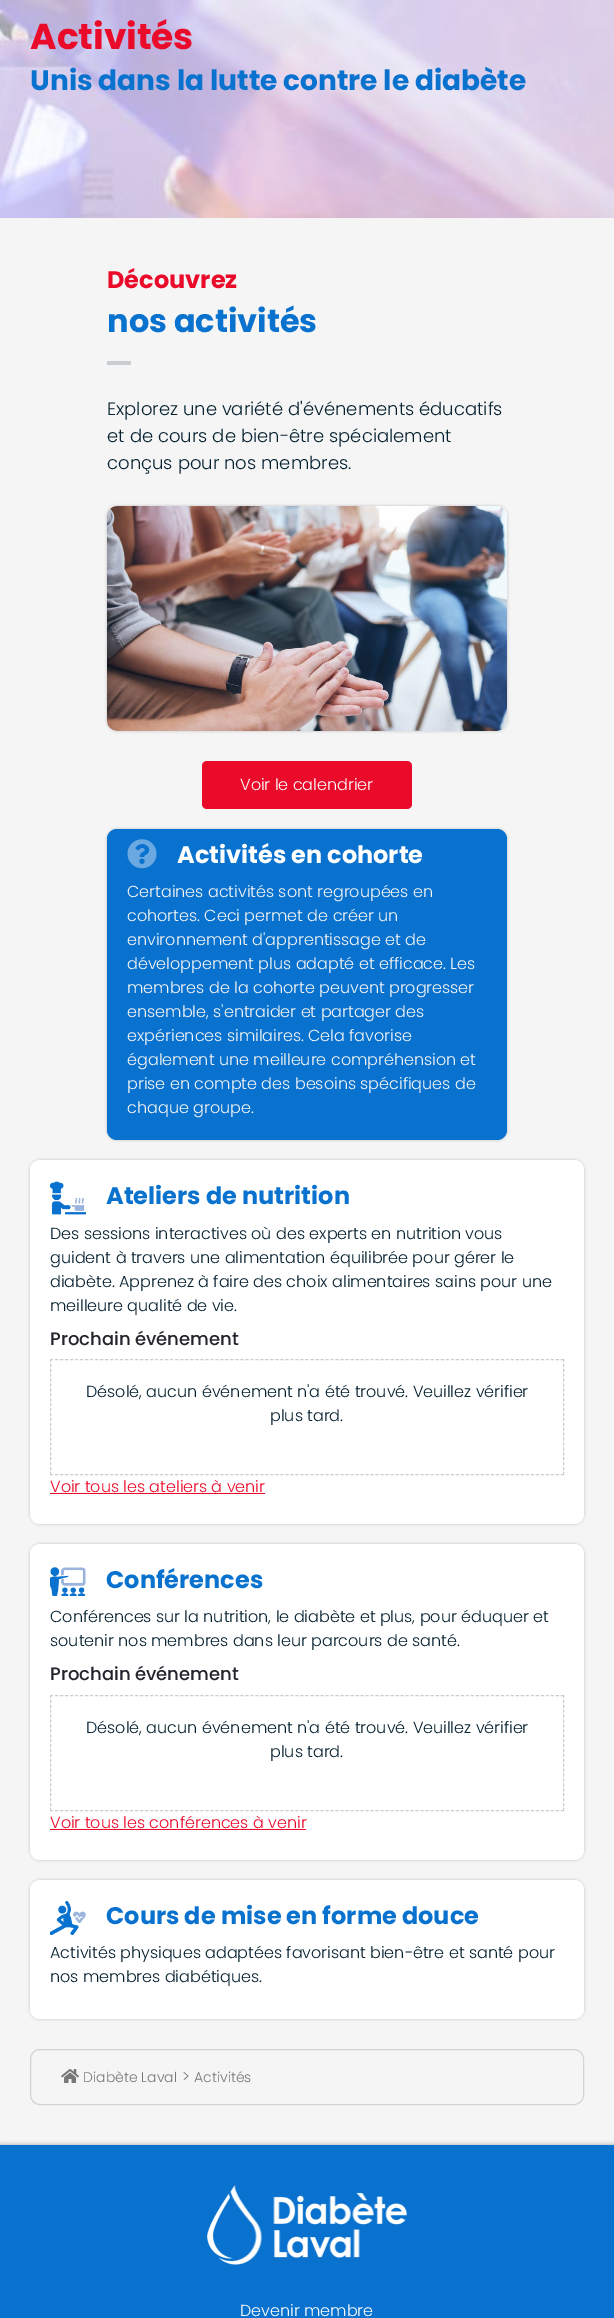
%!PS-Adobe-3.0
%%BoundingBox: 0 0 614 2318
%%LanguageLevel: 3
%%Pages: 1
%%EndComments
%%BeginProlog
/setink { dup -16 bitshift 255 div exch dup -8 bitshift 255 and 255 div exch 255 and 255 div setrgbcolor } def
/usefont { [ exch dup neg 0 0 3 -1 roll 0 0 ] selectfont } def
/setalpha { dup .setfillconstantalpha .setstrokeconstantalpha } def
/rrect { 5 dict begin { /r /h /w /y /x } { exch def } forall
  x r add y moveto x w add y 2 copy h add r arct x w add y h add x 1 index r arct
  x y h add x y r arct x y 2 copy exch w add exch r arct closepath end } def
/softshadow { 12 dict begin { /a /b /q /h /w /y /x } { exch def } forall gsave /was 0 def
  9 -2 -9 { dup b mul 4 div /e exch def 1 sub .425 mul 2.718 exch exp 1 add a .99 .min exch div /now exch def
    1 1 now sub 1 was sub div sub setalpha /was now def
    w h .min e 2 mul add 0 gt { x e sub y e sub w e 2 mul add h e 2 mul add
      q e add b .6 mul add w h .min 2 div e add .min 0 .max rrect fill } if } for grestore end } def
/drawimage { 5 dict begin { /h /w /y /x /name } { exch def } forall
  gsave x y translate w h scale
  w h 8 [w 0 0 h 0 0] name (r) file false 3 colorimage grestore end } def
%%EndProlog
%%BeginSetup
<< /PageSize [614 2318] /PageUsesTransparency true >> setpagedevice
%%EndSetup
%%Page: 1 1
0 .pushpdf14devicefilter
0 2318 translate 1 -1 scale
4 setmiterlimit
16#FFFFFF setink
0 0 614 2318 rectfill
(img1.raw) 0 0 614 218 drawimage
/Poppins-Bold 36 usefont
16#EA0A2A setink
30 49 moveto (Activités) show
/Poppins-Bold 28 usefont
16#0971CE setink
30 90 moveto (Unis dans la lutte contre le diabète) show
16#F5F5F5 setink
0 218 614 1927 rectfill
/Poppins-Bold 24 usefont
16#EA0A2A setink
107 288 moveto (Découvrez) show
/Poppins-Bold 32 usefont
16#0971CE setink
107 332 moveto (nos activités) show
16#C8CED1 setink
107 361 24 4 rectfill
/Poppins-Light 18 usefont
16#062130 setink
[
    [(Explorez une variété d'événements éducatifs) 107 415]
    [(et de cours de bien-être spécialement) 107 442]
    [(conçus pour nos membres.) 107 469]
] { aload pop moveto show } forall
16#000000 setink
107 506 400 225 10 1.5 0.19 softshadow
(img2.raw) 107 506 400 225 drawimage
16#EA0A2A setink
202 761 210 48 5 rrect fill
/Poppins-Light 16 usefont
16#FFFFFF setink
240 790 moveto (Voir le calendrier) show
16#000000 setink
107 829 400 311 10 1.5 0.19 softshadow
16#0971CE setink
107 829 400 311 10 rrect fill
(img3.raw) 127 839 30 30 drawimage
/Poppins-Bold 24 usefont
16#FFFFFF setink
177 863 moveto (Activités en cohorte) show
/Poppins-Light 16 usefont
16#F5F5F5 setink
[
    [(Certaines activités sont regroupées en) 127 897]
    [(cohortes. Ceci permet de créer un) 127 921]
    [(environnement d'apprentissage et de) 127 945]
    [(développement plus adapté et efficace. Les) 127 969]
    [(membres de la cohorte peuvent progresser) 127 993]
    [(ensemble, s'entraider et partager des) 127 1017]
    [(expériences similaires. Cela favorise) 127 1041]
    [(également une meilleure compréhension et) 127 1065]
    [(prise en compte des besoins spécifiques de) 127 1089]
    [(chaque groupe.) 127 1113]
] { aload pop moveto show } forall
16#000000 setink
30 1160 554 364 10 1.5 0.19 softshadow
16#FFFFFF setink
30 1160 554 364 10 rrect fill
(img4.raw) 50 1181 36 34 drawimage
/Poppins-Bold 24 usefont
16#0971CE setink
106 1204 moveto (Ateliers de nutrition) show
/Poppins-Light 16 usefont
16#062130 setink
[
    [(Des sessions interactives où des experts en nutrition vous) 50 1239]
    [(guident à travers une alimentation équilibrée pour gérer le) 50 1263]
    [(diabète. Apprenez à faire des choix alimentaires sains pour une) 50 1287]
    [(meilleure qualité de vie.) 50 1311]
] { aload pop moveto show } forall
/Poppins-Medium 18 usefont
16#25232B setink
50 1345 moveto (Prochain événement) show
16#CCCCCC setink
[3 2.01] 0 setdash
50 1359.5 moveto 564 1359.5 lineto stroke
[3 1.91] 0 setdash
563.5 1359 moveto 563.5 1475 lineto stroke
[3 2.01] 0 setdash
50 1474.5 moveto 564 1474.5 lineto stroke
[3 1.91] 0 setdash
50.5 1359 moveto 50.5 1475 lineto stroke
/Poppins-Light 16 usefont
16#062130 setink
86 1397 moveto (Désolé, aucun événement n'a été trouvé. Veuillez vérifier) show
270 1421 moveto (plus tard.) show
16#EA0A2A setink
50 1492 moveto (Voir tous les ateliers à venir) show
50 1493 215 1 rectfill
16#000000 setink
30 1544 554 316 10 1.5 0.19 softshadow
16#FFFFFF setink
30 1544 554 316 10 rrect fill
(img5.raw) 50 1567 36 29 drawimage
/Poppins-Bold 24 usefont
16#0971CE setink
106 1588 moveto (Conférences) show
/Poppins-Light 16 usefont
16#062130 setink
50 1622 moveto (Conférences sur la nutrition, le diabète et plus, pour éduquer et) show
50 1646 moveto (soutenir nos membres dans leur parcours de santé.) show
/Poppins-Medium 18 usefont
16#25232B setink
50 1680 moveto (Prochain événement) show
16#CCCCCC setink
[3 2.01] 0 setdash
50 1695.5 moveto 564 1695.5 lineto stroke
[3 1.91] 0 setdash
563.5 1695 moveto 563.5 1811 lineto stroke
[3 2.01] 0 setdash
50 1810.5 moveto 564 1810.5 lineto stroke
[3 1.91] 0 setdash
50.5 1695 moveto 50.5 1811 lineto stroke
/Poppins-Light 16 usefont
16#062130 setink
86 1733 moveto (Désolé, aucun événement n'a été trouvé. Veuillez vérifier) show
270 1757 moveto (plus tard.) show
16#EA0A2A setink
50 1828 moveto (Voir tous les conférences à venir) show
50 1829 256 1 rectfill
16#000000 setink
30 1880 554 139 10 1.5 0.19 softshadow
16#FFFFFF setink
30 1880 554 139 10 rrect fill
(img6.raw) 50 1901 36 34 drawimage
/Poppins-Bold 24 usefont
16#0971CE setink
106 1924 moveto (Cours de mise en forme douce) show
/Poppins-Light 16 usefont
16#062130 setink
50 1958 moveto (Activités physiques adaptées favorisant bien-être et santé pour) show
50 1982 moveto (nos membres diabétiques.) show
16#D3D3D3 setink
[] 0 setdash
30.5 2049.5 553 55 9.5 rrect stroke
(img7.raw) 61 2069 18 14 drawimage
/Poppins-Light 14 usefont
16#777777 setink
83 2082 moveto (Diabète Laval) show
/Poppins-Light 16 usefont
182 2082 moveto (>) show
/Poppins-Light 14 usefont
194 2082 moveto (Activités) show
16#000000 setink
0 2144 614 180 0 2 0.24 softshadow
16#0971CE setink
0 2145 614 173 rectfill
(img8.raw) 207 2185 200 80 drawimage
/Poppins-Light 16 usefont
16#FFFFFF setink
240 2316 moveto (Devenir membre) show
.poppdf14devicefilter showpage
%%EOF
